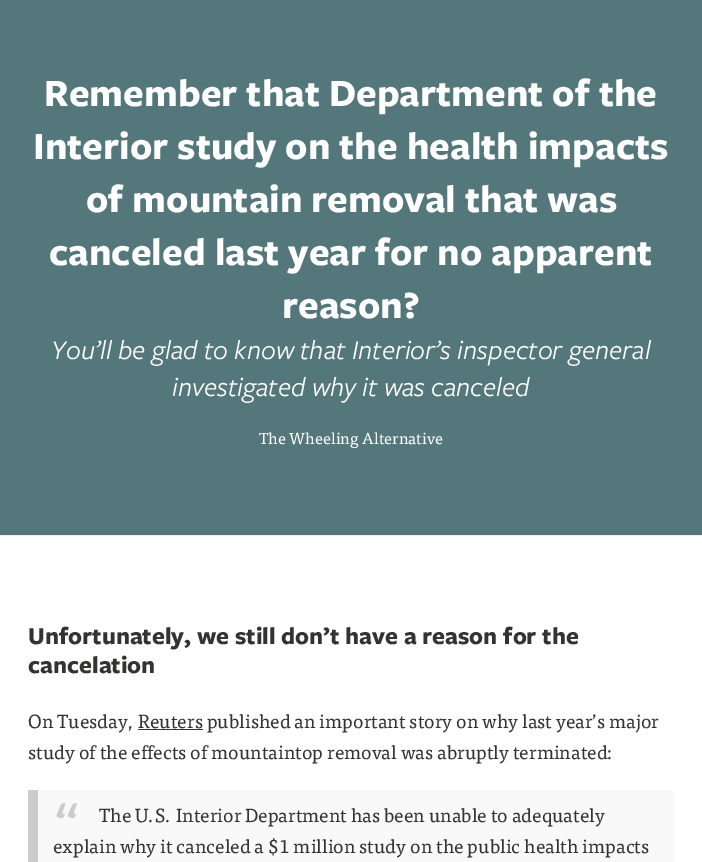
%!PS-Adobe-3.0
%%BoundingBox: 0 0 702 862
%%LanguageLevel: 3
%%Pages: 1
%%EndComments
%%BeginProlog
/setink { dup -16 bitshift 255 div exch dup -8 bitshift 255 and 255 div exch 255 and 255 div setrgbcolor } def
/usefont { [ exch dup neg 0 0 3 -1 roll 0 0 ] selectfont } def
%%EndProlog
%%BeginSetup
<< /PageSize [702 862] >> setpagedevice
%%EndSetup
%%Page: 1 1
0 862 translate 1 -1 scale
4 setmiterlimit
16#53777A setink
0 0 702 862 rectfill
/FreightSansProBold-Bold 40 usefont
16#FFFFFF setink
[
    [(Remember that Department of the) 44 106]
    [(Interior study on the health impacts) 33 159]
    [(of mountain removal that was) 86 212]
    [(canceled last year for no apparent) 49 265]
    [(reason?) 282 318]
] { aload pop moveto show } forall
/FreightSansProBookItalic-Italic 28 usefont
51 359 moveto (You’ll be glad to know that Interior’s inspector general) show
172 396 moveto (investigated why it was canceled) show
/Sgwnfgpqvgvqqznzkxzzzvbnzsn-Regular 16 usefont
259 444 moveto (The Wheeling Alternative) show
0 536 702 326 rectfill
16#EFEFEF setink
0 535 702 1 rectfill
/FreightSansProBold-Bold 25 usefont
16#333332 setink
28 644 moveto (Unfortunately, we still don’t have a reason for the) show
28 673 moveto (cancelation) show
/Sgwnfgpqvgvqqznzkxzzzvbnzsn-Regular 19 usefont
28 728 moveto (On Tuesday, Reuters published an important story on why last year’s major) show
16#333333 setink
138 729 65 1 rectfill
16#333332 setink
28 759 moveto (study of the effects of mountaintop removal was abruptly terminated:) show
16#F9F9F9 setink
38 790 636 72 rectfill
16#CCCCCC setink
28 790 10 72 rectfill
/Sgwnfgpqvgvqqznzkxzzzvbnzsn-Regular 64 usefont
53 848 moveto (“) show
/Sgwnfgpqvgvqqznzkxzzzvbnzsn-Regular 19 usefont
16#333332 setink
99 822 moveto (The U.S. Interior Department has been unable to adequately) show
53 853 moveto (explain why it canceled a $1 million study on the public health impacts) show
showpage
%%EOF
